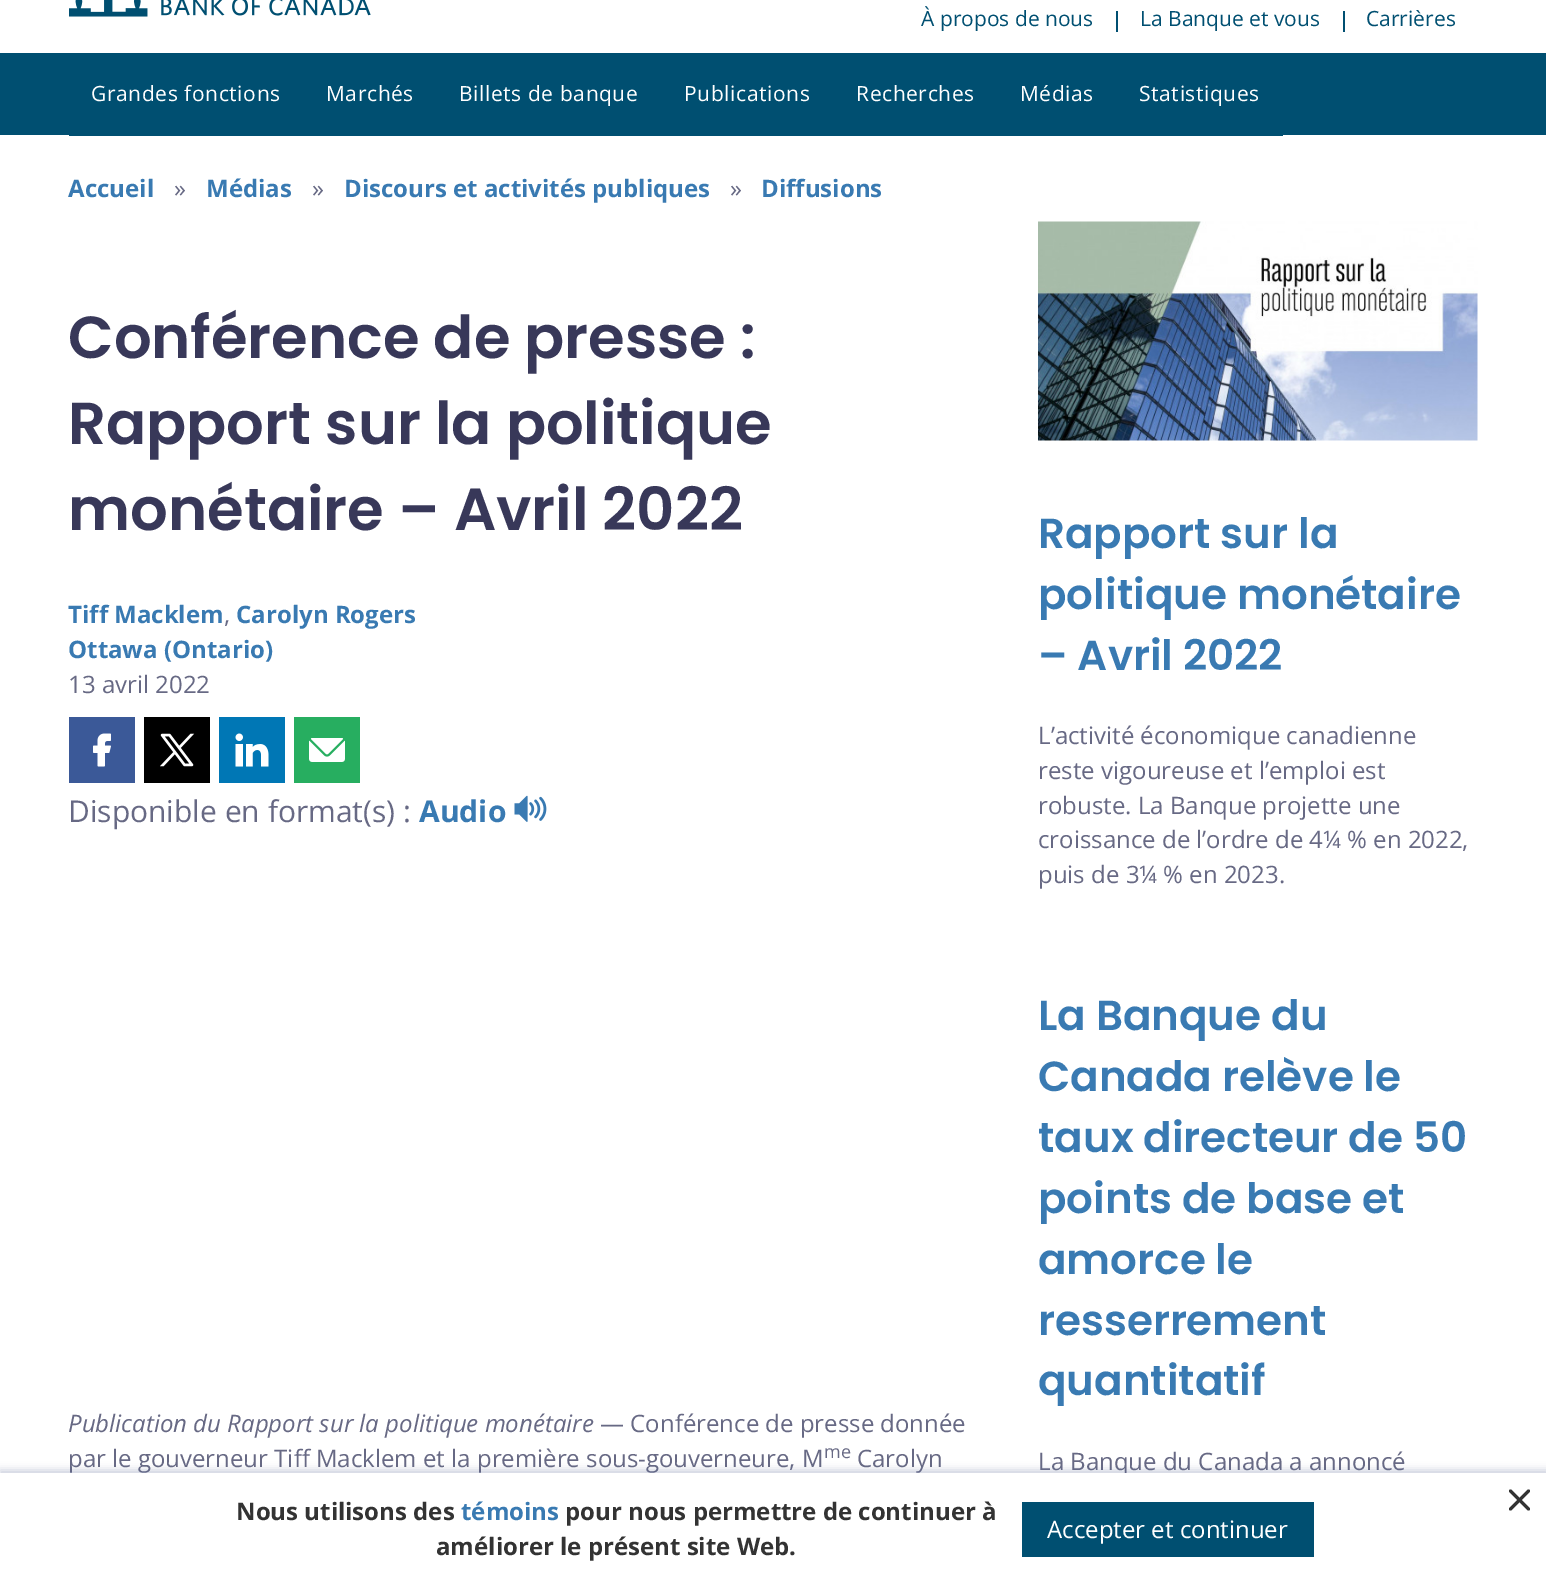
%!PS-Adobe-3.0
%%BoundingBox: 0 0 1546 1586
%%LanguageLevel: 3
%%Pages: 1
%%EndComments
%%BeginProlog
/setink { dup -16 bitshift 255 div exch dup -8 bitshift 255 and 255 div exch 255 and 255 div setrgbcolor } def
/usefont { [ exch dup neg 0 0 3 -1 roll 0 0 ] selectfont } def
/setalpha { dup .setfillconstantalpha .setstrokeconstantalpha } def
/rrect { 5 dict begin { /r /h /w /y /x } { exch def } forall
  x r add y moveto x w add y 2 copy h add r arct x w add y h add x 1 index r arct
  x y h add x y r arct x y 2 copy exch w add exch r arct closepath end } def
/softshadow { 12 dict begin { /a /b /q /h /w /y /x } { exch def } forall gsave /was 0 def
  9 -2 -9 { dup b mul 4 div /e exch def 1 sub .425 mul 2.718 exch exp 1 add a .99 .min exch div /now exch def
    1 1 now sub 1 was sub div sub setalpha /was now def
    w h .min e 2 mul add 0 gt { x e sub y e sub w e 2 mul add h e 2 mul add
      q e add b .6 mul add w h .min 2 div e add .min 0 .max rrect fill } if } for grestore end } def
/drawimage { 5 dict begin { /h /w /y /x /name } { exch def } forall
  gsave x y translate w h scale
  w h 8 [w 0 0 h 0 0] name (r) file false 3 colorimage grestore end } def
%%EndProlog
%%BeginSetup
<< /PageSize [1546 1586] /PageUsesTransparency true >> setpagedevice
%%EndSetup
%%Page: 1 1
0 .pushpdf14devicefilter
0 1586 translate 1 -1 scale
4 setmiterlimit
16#FFFFFF setink
0 0 1546 1586 rectfill
(img1.raw) 69 0 302 17 drawimage
/OpenSans-Regular 21 usefont
16#004F71 setink
921 26 moveto (À propos de nous) show
1116 11 2 21 rectfill
1140 26 moveto (La Banque et vous) show
1343 11 2 21 rectfill
1366 26 moveto (Carrières) show
0 53 1546 82 rectfill
69 135 1214 1 rectfill
16#FFFFFF setink
91 101 moveto 0.6 0 (Grandes fonctions) ashow
326 101 moveto 0.6 0 (Marchés) ashow
459 101 moveto 0.6 0 (Billets de banque) ashow
684 101 moveto 0.6 0 (Publications) ashow
856 101 moveto 0.6 0 (Recherches) ashow
1020 101 moveto 0.6 0 (Médias) ashow
1139 101 moveto 0.6 0 (Statistiques) ashow
/OpenSans-Bold 24 usefont
16#397AB2 setink
68 197 moveto (Accueil) show
/OpenSans-Regular 24 usefont
16#676984 setink
174 197 moveto (») show
/OpenSans-Bold 24 usefont
16#397AB2 setink
206 197 moveto (Médias) show
/OpenSans-Regular 24 usefont
16#676984 setink
312 197 moveto (») show
/OpenSans-Bold 24 usefont
16#397AB2 setink
344 197 moveto (Discours et activités publiques) show
/OpenSans-Regular 24 usefont
16#676984 setink
730 197 moveto (») show
/OpenSans-Bold 24 usefont
16#397AB2 setink
761 197 moveto (Diffusions) show
/Poppins-SemiBold 59.25 usefont
16#383859 setink
[
    [(Conférence de presse :) 68 358]
    [(Rapport sur la politique) 68 444]
    [(monétaire – Avril 2022) 68 530]
] { aload pop moveto show } forall
/OpenSans-Bold 24 usefont
16#397AB2 setink
68 623 moveto (Tiff Macklem) show
/OpenSans-Regular 24 usefont
16#676984 setink
224 623 moveto (,) show
/OpenSans-Bold 24 usefont
16#397AB2 setink
236 623 moveto (Carolyn Rogers) show
68 658 moveto (Ottawa \(Ontario\)) show
/OpenSans-Regular 24 usefont
16#676984 setink
68 693 moveto (13 avril 2022) show
16#3B5998 setink
69 717 66 66 rectfill
(img2.raw) 93 733 18 34 drawimage
16#000000 setink
144 717 66 66 rectfill
(img3.raw) 160 733 35 34 drawimage
16#0077B5 setink
219 717 66 66 rectfill
(img4.raw) 235 733 34 34 drawimage
16#27AE60 setink
294 717 66 66 rectfill
(img5.raw) 309 738 36 24 drawimage
/OpenSans-Regular 30 usefont
16#676984 setink
68 822 moveto (Disponible en format\(s\) :) show
/OpenSans-Bold 30 usefont
16#397AB2 setink
419 822 moveto (Audio) show
(img6.raw) 514 795 33 27 drawimage
/OpenSans-Italic 24 usefont
16#676984 setink
68 1432 moveto (Publication du Rapport sur la politique monétaire) show
/OpenSans-Regular 24 usefont
600 1432 moveto (— Conférence de presse donnée) show
68 1467 moveto (par le gouverneur Tiff Macklem et la première sous-gouverneure, M) show
/OpenSans-Regular 18 usefont
824 1458 moveto (me) show
/OpenSans-Regular 24 usefont
857 1467 moveto (Carolyn) show
(img7.raw) 1038 221 440 220 drawimage
/Poppins-SemiBold 42 usefont
16#397AB2 setink
[
    [(Rapport sur la) 1038 548]
    [(politique monétaire) 1038 609]
    [(– Avril 2022) 1038 670]
] { aload pop moveto show } forall
/OpenSans-Regular 24 usefont
16#676984 setink
[
    [(L’activité économique canadienne) 1038 744]
    [(reste vigoureuse et l’emploi est) 1038 779]
    [(robuste. La Banque projette une) 1038 814]
    [(croissance de l’ordre de 4¼ % en 2022,) 1038 848]
    [(puis de 3¼ % en 2023.) 1038 883]
] { aload pop moveto show } forall
/Poppins-SemiBold 42 usefont
16#397AB2 setink
[
    [(La Banque du) 1038 1030]
    [(Canada relève le) 1038 1091]
    [(taux directeur de 50) 1038 1152]
    [(points de base et) 1038 1213]
    [(amorce le) 1038 1274]
    [(resserrement) 1038 1335]
    [(quantitatif) 1038 1395]
] { aload pop moveto show } forall
/OpenSans-Regular 24 usefont
16#676984 setink
1038 1470 moveto (La Banque du Canada a annoncé) show
16#4F6090 setink
0 1470 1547 114 0 4 0.3 softshadow
16#FFFFFF setink
0 1473 1546 113 rectfill
/OpenSans-Bold 24 usefont
16#333333 setink
236 1520 moveto (Nous utilisons des) show
16#397AB2 setink
461 1520 moveto (témoins) show
16#333333 setink
565 1520 moveto (pour nous permettre de continuer à) show
436 1555 moveto (améliorer le présent site Web.) show
16#004F71 setink
1022 1502 292 55 rectfill
/OpenSans-Regular 24 usefont
16#FFFFFF setink
1047 1538 moveto (Accepter et continuer) show
16#333333 setink
3 setlinewidth
1 setlinecap
1 setlinejoin
1528.5 1491 moveto 1510.5 1509 lineto 1510.5 1491 moveto 1528.5 1509 lineto stroke
.poppdf14devicefilter showpage
%%EOF
